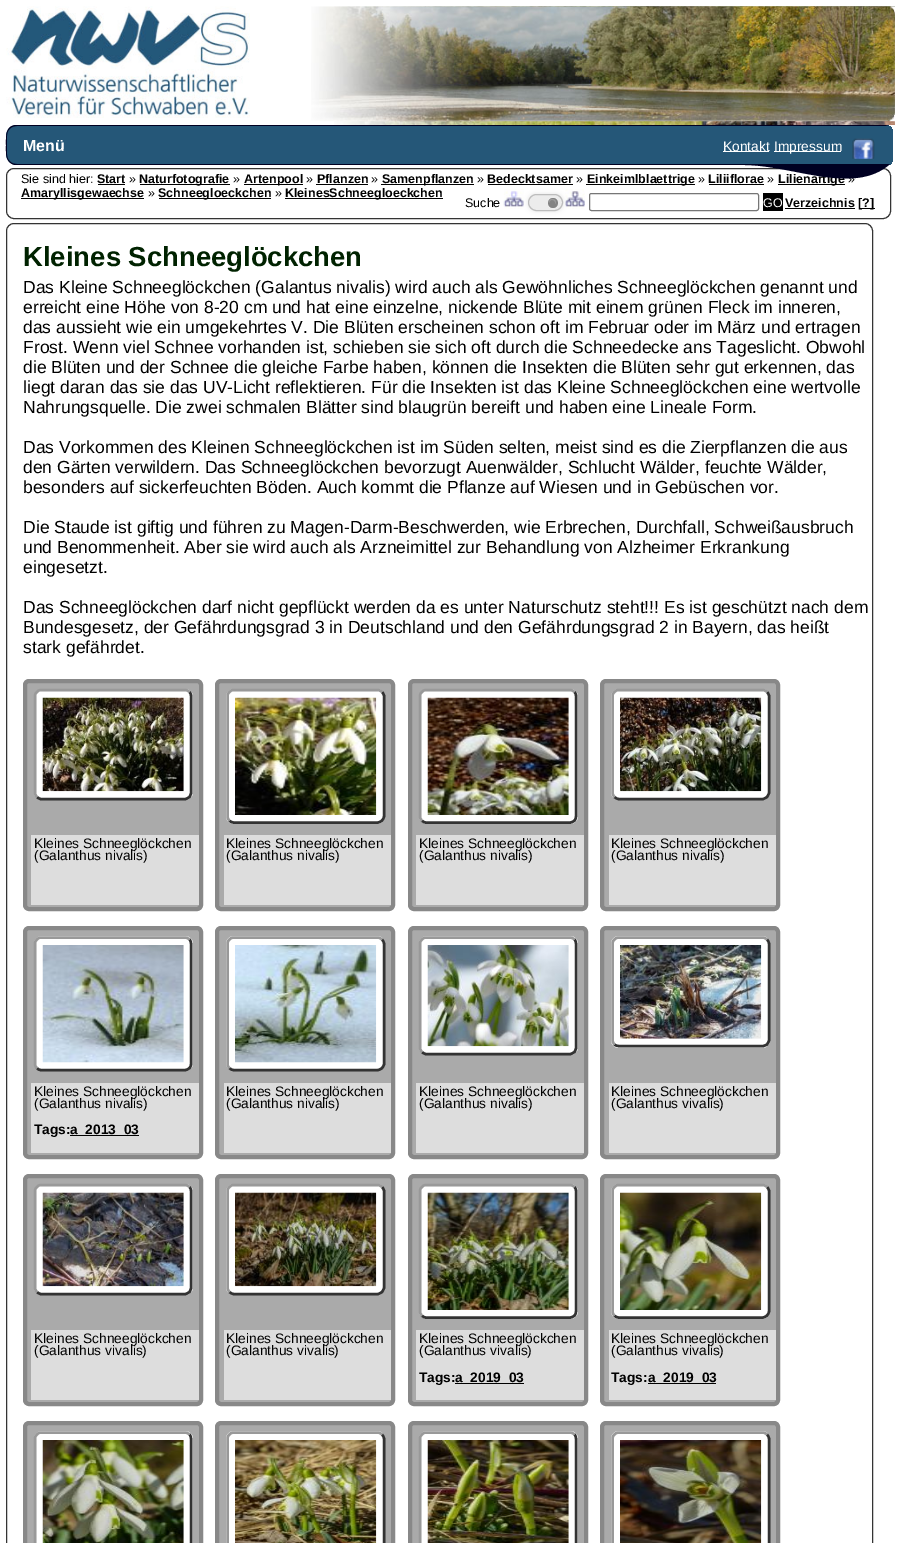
%!PS-Adobe-3.0
%%BoundingBox: 0 0 907 1543
%%LanguageLevel: 3
%%Pages: 1
%%EndComments
%%BeginProlog
/setink { dup -16 bitshift 255 div exch dup -8 bitshift 255 and 255 div exch 255 and 255 div setrgbcolor } def
/usefont { [ exch dup neg 0 0 3 -1 roll 0 0 ] selectfont } def
/setalpha { dup .setfillconstantalpha .setstrokeconstantalpha } def
/disc { newpath 0 360 arc closepath } def
/rrect { 5 dict begin { /r /h /w /y /x } { exch def } forall
  x r add y moveto x w add y 2 copy h add r arct x w add y h add x 1 index r arct
  x y h add x y r arct x y 2 copy exch w add exch r arct closepath end } def
/softshadow { 12 dict begin { /a /b /q /h /w /y /x } { exch def } forall gsave /was 0 def
  9 -2 -9 { dup b mul 4 div /e exch def 1 sub .425 mul 2.718 exch exp 1 add a .99 .min exch div /now exch def
    1 1 now sub 1 was sub div sub setalpha /was now def
    w h .min e 2 mul add 0 gt { x e sub y e sub w e 2 mul add h e 2 mul add
      q e add b .6 mul add w h .min 2 div e add .min 0 .max rrect fill } if } for grestore end } def
/drawimage { 5 dict begin { /h /w /y /x /name } { exch def } forall
  gsave x y translate w h scale
  w h 8 [w 0 0 h 0 0] name (r) file false 3 colorimage grestore end } def
%%EndProlog
%%BeginSetup
<< /PageSize [907 1543] /PageUsesTransparency true >> setpagedevice
%%EndSetup
%%Page: 1 1
0 .pushpdf14devicefilter
0 1543 translate 1 -1 scale
4 setmiterlimit
16#FFFFFF setink
0 0 907 1543 rectfill
(img1.raw) 6 6 244 112 drawimage
(img2.raw) 334 6 561 119 drawimage
(img3.raw) 311 6 584 116 drawimage
gsave
6 125 887 41 8 rrect clip newpath
16#255778 setink
6 125 897 40 11 rrect fill
grestore
16#343434 setink
6.5 168.5 884 50 7.5 rrect stroke
/LiberationSans-Regular 12.5 usefont
16#000000 setink
21 183 moveto (Sie sind hier:) show
/LiberationSans-Bold 12.5 usefont
97 183 moveto (Start) show
/LiberationSans-Regular 12.5 usefont
129 183 moveto (») show
140 184 90 1 rectfill
/LiberationSans-Bold 12.5 usefont
139 183 moveto (Naturfotografie) show
/LiberationSans-Regular 12.5 usefont
233 183 moveto (») show
244 184 59 1 rectfill
/LiberationSans-Bold 12.5 usefont
244 183 moveto (Artenpool) show
/LiberationSans-Regular 12.5 usefont
306 183 moveto (») show
/LiberationSans-Bold 12.5 usefont
317 183 moveto (Pflanzen) show
/LiberationSans-Regular 12.5 usefont
371 183 moveto (») show
381 184 93 1 rectfill
/LiberationSans-Bold 12.5 usefont
382 183 moveto (Samenpflanzen) show
/LiberationSans-Regular 12.5 usefont
477 183 moveto (») show
/LiberationSans-Bold 12.5 usefont
487 183 moveto (Bedecktsamer) show
/LiberationSans-Regular 12.5 usefont
576 183 moveto (») show
586 184 109 1 rectfill
/LiberationSans-Bold 12.5 usefont
587 183 moveto (Einkeimlblaettrige) show
/LiberationSans-Regular 12.5 usefont
698 183 moveto (») show
/LiberationSans-Bold 12.5 usefont
708 183 moveto (Liliiflorae) show
/LiberationSans-Regular 12.5 usefont
767 183 moveto (») show
778 184 67 1 rectfill
/LiberationSans-Bold 12.5 usefont
778 183 moveto (Lilienartige) show
/LiberationSans-Regular 12.5 usefont
848 183 moveto (») show
16#000022 setink
17 125 moveto 5 125 6 137 6 145 curveto 6 153 5 163 15 165 curveto 744 165 lineto 793 165 854 196 890 164 curveto 17 164 lineto 11 164 7 160 7 154 curveto 7 136 lineto 7 130 11 126 17 126 curveto 889 126 lineto 885 125 lineto closepath fill
/LiberationSans-Bold 16 usefont
16#FFFFFF setink
23 151 moveto (Menü) show
723 151 46 1 rectfill
/LiberationSans-Regular 13.75 usefont
723 151 moveto (Kontakt) show
774 151 67 1 rectfill
774 151 moveto (Impressum) show
(img4.raw) 852 138 23 21 drawimage
[
    [98 184 27 1 16#000000]
    [316 184 52 1 16#000000]
    [488 184 85 1 16#000000]
    [709 184 55 1 16#000000]
    [21 198 123 1 16#000000]
] { aload pop setink rectfill } forall
/LiberationSans-Bold 12.5 usefont
21 197 moveto (Amaryllisgewaechse) show
/LiberationSans-Regular 12.5 usefont
148 197 moveto (») show
159 198 112 1 rectfill
/LiberationSans-Bold 12.5 usefont
158 197 moveto (Schneegloeckchen) show
/LiberationSans-Regular 12.5 usefont
275 197 moveto (») show
285 198 158 1 rectfill
/LiberationSans-Bold 12.5 usefont
285 197 moveto (KleinesSchneegloeckchen) show
/LiberationSans-Regular 12.5 usefont
465 207 moveto (Suche) show
(img5.raw) 503 189 21 20 drawimage
(img6.raw) 565 189 20 20 drawimage
528 194 35 17 8.5 2.5 0.1 softshadow
16#ECECEC setink
528 194 35 17 8.5 rrect fill
0.2 setalpha
16#000000 setink
528.5 194.5 34 16 8 rrect stroke
1 setalpha
16#BBBBBB setink
553 203 5 disc fill
16#DDDDDD setink
552 200 moveto 554.5 200 555.5 202 555.5 204 curveto 558 198 548 197 549 203 curveto 549.5 201.5 550.5 200 552 200 curveto closepath fill
0.3 setalpha
16#000000 setink
553 198 moveto 559.5 198 559.5 208 553 208 curveto 546.5 208 546.5 198 553 198 curveto closepath fill
1 setalpha
16#767676 setink
589.5 193.5 169 17 2 rrect stroke
16#000000 setink
763 193 20 18 rectfill
16#FFFFFF setink
763 207 moveto (GO) show
/LiberationSans-Bold 12.5 usefont
16#000000 setink
785 207 moveto (Verzeichnis) show
785 208 70 1 rectfill
859 208 16 1 rectfill
858 207 moveto ([?]) show
16#343434 setink
6.5 223.5 866 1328 7.5 rrect stroke
/LiberationSans-Bold 27.5 usefont
16#002200 setink
23 266 moveto (Kleines Schneeglöckchen) show
/LiberationSans-Regular 17.5 usefont
16#000000 setink
[
    [(Das Kleine Schneeglöckchen \(Galantus nivalis\) wird auch als Gewöhnliches Schneeglöckchen genannt und) 23 293]
    [(erreicht eine Höhe von 8-20 cm und hat eine einzelne, nickende Blüte mit einem grünen Fleck im inneren,) 23 313]
    [(das aussieht wie ein umgekehrtes V. Die Blüten erscheinen schon oft im Februar oder im März und ertragen) 23 333]
    [(Frost. Wenn viel Schnee vorhanden ist, schieben sie sich oft durch die Schneedecke ans Tageslicht. Obwohl) 23 353]
    [(die Blüten und der Schnee die gleiche Farbe haben, können die Insekten die Blüten sehr gut erkennen, das) 23 373]
    [(liegt daran das sie das UV-Licht reflektieren. Für die Insekten ist das Kleine Schneeglöckchen eine wertvolle) 23 393]
    [(Nahrungsquelle. Die zwei schmalen Blätter sind blaugrün bereift und haben eine Lineale Form.) 23 413]
    [(Das Vorkommen des Kleinen Schneeglöckchen ist im Süden selten, meist sind es die Zierpflanzen die aus) 23 453]
    [(den Gärten verwildern. Das Schneeglöckchen bevorzugt Auenwälder, Schlucht Wälder, feuchte Wälder,) 23 473]
    [(besonders auf sickerfeuchten Böden. Auch kommt die Pflanze auf Wiesen und in Gebüschen vor.) 23 493]
    [(Die Staude ist giftig und führen zu Magen-Darm-Beschwerden, wie Erbrechen, Durchfall, Schweißausbruch) 23 533]
    [(und Benommenheit. Aber sie wird auch als Arzneimittel zur Behandlung von Alzheimer Erkrankung) 23 553]
    [(eingesetzt.) 23 573]
    [(Das Schneeglöckchen darf nicht gepflückt werden da es unter Naturschutz steht!!! Es ist geschützt nach dem) 23 613]
    [(Bundesgesetz, der Gefährdungsgrad 3 in Deutschland und den Gefährdungsgrad 2 in Bayern, das heißt) 23 633]
    [(stark gefährdet.) 23 653]
] { aload pop moveto show } forall
16#AAAAAA setink
25 681 176 228 4 rrect gsave fill grestore
16#888888 setink
4 setlinewidth
stroke
16#FFFFFF setink
34 689 159 111 8 rrect fill
16#333333 setink
2.5 setlinewidth
189.5 692 moveto 190.5 693 191 694.5 191 696 curveto 191 792.5 lineto 191 794 190.5 795.5 189.5 797 curveto 188 798 186.5 799 185 799 curveto 41 799 lineto 39.5 799 38 798 37 797 curveto stroke
16#999999 setink
37 797 moveto 35.5 795.5 35 794 35 792.5 curveto 35 696 lineto 35 694.5 35.5 693 37 692 curveto 38 690.5 39.5 690 41 690 curveto 185 690 lineto 186.5 690 188 690.5 189.5 692 curveto stroke
(img7.raw) 42 697 142 95 drawimage
16#DDDDDD setink
31 835 168 70 rectfill
/LiberationSans-Regular 13.75 usefont
16#000000 setink
34 848 moveto (Kleines Schneeglöckchen) show
34 860 moveto (\(Galanthus nivalis\)) show
16#AAAAAA setink
217 681 176 228 4 rrect gsave fill grestore
16#888888 setink
4 setlinewidth
stroke
16#FFFFFF setink
226 689 159 135 8 rrect fill
16#333333 setink
2.5 setlinewidth
382 692 moveto 383 693 384 694.5 384 696 curveto 384 816 lineto 384 818 383 819.5 382 820.5 curveto 380.5 822 379 822.5 377.5 822.5 curveto 234 822.5 lineto 232 822.5 230.5 822 229.5 820.5 curveto stroke
16#999999 setink
229.5 820.5 moveto 228 819.5 227.5 818 227.5 816 curveto 227.5 696 lineto 227.5 694.5 228 693 229.5 692 curveto 230.5 690.5 232 690 234 690 curveto 377.5 690 lineto 379 690 380.5 690.5 382 692 curveto stroke
(img8.raw) 235 697 142 118 drawimage
16#DDDDDD setink
224 835 167 70 rectfill
16#000000 setink
226 848 moveto (Kleines Schneeglöckchen) show
226 860 moveto (\(Galanthus nivalis\)) show
16#AAAAAA setink
410 681 176 228 4 rrect gsave fill grestore
16#888888 setink
4 setlinewidth
stroke
16#FFFFFF setink
419 689 159 135 8 rrect fill
16#333333 setink
2.5 setlinewidth
574.5 692 moveto 575.5 693 576 694.5 576 696 curveto 576 816 lineto 576 818 575.5 819.5 574.5 820.5 curveto 573 822 571.5 822.5 570 822.5 curveto 426 822.5 lineto 424.5 822.5 423 822 422 820.5 curveto stroke
16#999999 setink
422 820.5 moveto 420.5 819.5 420 818 420 816 curveto 420 696 lineto 420 694.5 420.5 693 422 692 curveto 423 690.5 424.5 690 426 690 curveto 570 690 lineto 571.5 690 573 690.5 574.5 692 curveto stroke
(img9.raw) 427 697 142 118 drawimage
16#DDDDDD setink
416 835 168 70 rectfill
16#000000 setink
419 848 moveto (Kleines Schneeglöckchen) show
419 860 moveto (\(Galanthus nivalis\)) show
16#AAAAAA setink
602 681 176 228 4 rrect gsave fill grestore
16#888888 setink
4 setlinewidth
stroke
16#FFFFFF setink
611 689 159 111 8 rrect fill
16#333333 setink
2.5 setlinewidth
767 692 moveto 768 693 769 694.5 769 696 curveto 769 792.5 lineto 769 794 768 795.5 767 797 curveto 765.5 798 764 799 762.5 799 curveto 619 799 lineto 617 799 615.5 798 614.5 797 curveto stroke
16#999999 setink
614.5 797 moveto 613 795.5 612.5 794 612.5 792.5 curveto 612.5 696 lineto 612.5 694.5 613 693 614.5 692 curveto 615.5 690.5 617 690 619 690 curveto 762.5 690 lineto 764 690 765.5 690.5 767 692 curveto stroke
(img10.raw) 620 697 142 95 drawimage
16#DDDDDD setink
609 835 167 70 rectfill
16#000000 setink
611 848 moveto (Kleines Schneeglöckchen) show
611 860 moveto (\(Galanthus nivalis\)) show
16#AAAAAA setink
25 928 176 229 4 rrect gsave fill grestore
16#888888 setink
4 setlinewidth
stroke
16#FFFFFF setink
34 936 159 135 8 rrect fill
16#333333 setink
2.5 setlinewidth
189.5 939.5 moveto 190.5 940.5 191 942 191 944 curveto 191 1064 lineto 191 1065.5 190.5 1067 189.5 1068 curveto 188 1069.5 186.5 1070 185 1070 curveto 41 1070 lineto 39.5 1070 38 1069.5 37 1068 curveto stroke
16#999999 setink
37 1068 moveto 35.5 1067 35 1065.5 35 1064 curveto 35 944 lineto 35 942 35.5 940.5 37 939.5 curveto 38 938 39.5 937.5 41 937.5 curveto 185 937.5 lineto 186.5 937.5 188 938 189.5 939.5 curveto stroke
(img11.raw) 42 945 142 118 drawimage
16#DDDDDD setink
31 1083 168 70 rectfill
16#000000 setink
34 1096 moveto (Kleines Schneeglöckchen) show
34 1108 moveto (\(Galanthus nivalis\)) show
/LiberationSans-Bold 13.75 usefont
34 1134 moveto (Tags:) show
70 1135 69 1 rectfill
70 1134 moveto (a_2013_03) show
16#AAAAAA setink
217 928 176 229 4 rrect gsave fill grestore
16#888888 setink
4 setlinewidth
stroke
16#FFFFFF setink
226 936 159 135 8 rrect fill
16#333333 setink
2.5 setlinewidth
382 939.5 moveto 383 940.5 384 942 384 944 curveto 384 1064 lineto 384 1065.5 383 1067 382 1068 curveto 380.5 1069.5 379 1070 377.5 1070 curveto 234 1070 lineto 232 1070 230.5 1069.5 229.5 1068 curveto stroke
16#999999 setink
229.5 1068 moveto 228 1067 227.5 1065.5 227.5 1064 curveto 227.5 944 lineto 227.5 942 228 940.5 229.5 939.5 curveto 230.5 938 232 937.5 234 937.5 curveto 377.5 937.5 lineto 379 937.5 380.5 938 382 939.5 curveto stroke
(img12.raw) 235 945 142 118 drawimage
16#DDDDDD setink
224 1083 167 70 rectfill
/LiberationSans-Regular 13.75 usefont
16#000000 setink
226 1096 moveto (Kleines Schneeglöckchen) show
226 1108 moveto (\(Galanthus nivalis\)) show
16#AAAAAA setink
410 928 176 229 4 rrect gsave fill grestore
16#888888 setink
4 setlinewidth
stroke
16#FFFFFF setink
419 936 159 119 8 rrect fill
16#333333 setink
2.5 setlinewidth
574.5 939.5 moveto 575.5 940.5 576 942 576 944 curveto 576 1047.5 lineto 576 1049 575.5 1050.5 574.5 1052 curveto 573 1053 571.5 1054 570 1054 curveto 426 1054 lineto 424.5 1054 423 1053 422 1052 curveto stroke
16#999999 setink
422 1052 moveto 420.5 1050.5 420 1049 420 1047.5 curveto 420 944 lineto 420 942 420.5 940.5 422 939.5 curveto 423 938 424.5 937.5 426 937.5 curveto 570 937.5 lineto 571.5 937.5 573 938 574.5 939.5 curveto stroke
(img13.raw) 427 945 142 102 drawimage
16#DDDDDD setink
416 1083 168 70 rectfill
16#000000 setink
419 1096 moveto (Kleines Schneeglöckchen) show
419 1108 moveto (\(Galanthus nivalis\)) show
16#AAAAAA setink
602 928 176 229 4 rrect gsave fill grestore
16#888888 setink
4 setlinewidth
stroke
16#FFFFFF setink
611 936 159 112 8 rrect fill
16#333333 setink
2.5 setlinewidth
767 939.5 moveto 768 940.5 769 942 769 944 curveto 769 1040 lineto 769 1041.5 768 1043 767 1044.5 curveto 765.5 1045.5 764 1046 762.5 1046 curveto 619 1046 lineto 617 1046 615.5 1045.5 614.5 1044.5 curveto stroke
16#999999 setink
614.5 1044.5 moveto 613 1043 612.5 1041.5 612.5 1040 curveto 612.5 944 lineto 612.5 942 613 940.5 614.5 939.5 curveto 615.5 938 617 937.5 619 937.5 curveto 762.5 937.5 lineto 764 937.5 765.5 938 767 939.5 curveto stroke
(img14.raw) 620 945 142 94 drawimage
16#DDDDDD setink
609 1083 167 70 rectfill
16#000000 setink
611 1096 moveto (Kleines Schneeglöckchen) show
611 1108 moveto (\(Galanthus vivalis\)) show
16#AAAAAA setink
25 1176 176 228 4 rrect gsave fill grestore
16#888888 setink
4 setlinewidth
stroke
16#FFFFFF setink
34 1184 159 111 8 rrect fill
16#333333 setink
2.5 setlinewidth
189.5 1187 moveto 190.5 1188 191 1189.5 191 1191 curveto 191 1287.5 lineto 191 1289 190.5 1290.5 189.5 1292 curveto 188 1293 186.5 1294 185 1294 curveto 41 1294 lineto 39.5 1294 38 1293 37 1292 curveto stroke
16#999999 setink
37 1292 moveto 35.5 1290.5 35 1289 35 1287.5 curveto 35 1191 lineto 35 1189.5 35.5 1188 37 1187 curveto 38 1185.5 39.5 1185 41 1185 curveto 185 1185 lineto 186.5 1185 188 1185.5 189.5 1187 curveto stroke
(img15.raw) 42 1192 142 95 drawimage
16#DDDDDD setink
31 1330 168 70 rectfill
16#000000 setink
34 1343 moveto (Kleines Schneeglöckchen) show
34 1355 moveto (\(Galanthus vivalis\)) show
16#AAAAAA setink
217 1176 176 228 4 rrect gsave fill grestore
16#888888 setink
4 setlinewidth
stroke
16#FFFFFF setink
226 1184 159 111 8 rrect fill
16#333333 setink
2.5 setlinewidth
382 1187 moveto 383 1188 384 1189.5 384 1191 curveto 384 1287.5 lineto 384 1289 383 1290.5 382 1292 curveto 380.5 1293 379 1294 377.5 1294 curveto 234 1294 lineto 232 1294 230.5 1293 229.5 1292 curveto stroke
16#999999 setink
229.5 1292 moveto 228 1290.5 227.5 1289 227.5 1287.5 curveto 227.5 1191 lineto 227.5 1189.5 228 1188 229.5 1187 curveto 230.5 1185.5 232 1185 234 1185 curveto 377.5 1185 lineto 379 1185 380.5 1185.5 382 1187 curveto stroke
(img16.raw) 235 1192 142 95 drawimage
16#DDDDDD setink
224 1330 167 70 rectfill
16#000000 setink
226 1343 moveto (Kleines Schneeglöckchen) show
226 1355 moveto (\(Galanthus vivalis\)) show
16#AAAAAA setink
410 1176 176 228 4 rrect gsave fill grestore
16#888888 setink
4 setlinewidth
stroke
16#FFFFFF setink
419 1184 159 135 8 rrect fill
16#333333 setink
2.5 setlinewidth
574.5 1187 moveto 575.5 1188 576 1189.5 576 1191 curveto 576 1311 lineto 576 1313 575.5 1314.5 574.5 1315.5 curveto 573 1317 571.5 1317.5 570 1317.5 curveto 426 1317.5 lineto 424.5 1317.5 423 1317 422 1315.5 curveto stroke
16#999999 setink
422 1315.5 moveto 420.5 1314.5 420 1313 420 1311 curveto 420 1191 lineto 420 1189.5 420.5 1188 422 1187 curveto 423 1185.5 424.5 1185 426 1185 curveto 570 1185 lineto 571.5 1185 573 1185.5 574.5 1187 curveto stroke
(img17.raw) 427 1192 142 118 drawimage
16#DDDDDD setink
416 1330 168 70 rectfill
16#000000 setink
419 1343 moveto (Kleines Schneeglöckchen) show
419 1355 moveto (\(Galanthus vivalis\)) show
/LiberationSans-Bold 13.75 usefont
419 1382 moveto (Tags:) show
455 1383 69 1 rectfill
455 1382 moveto (a_2019_03) show
16#AAAAAA setink
602 1176 176 228 4 rrect gsave fill grestore
16#888888 setink
4 setlinewidth
stroke
16#FFFFFF setink
611 1184 159 135 8 rrect fill
16#333333 setink
2.5 setlinewidth
767 1187 moveto 768 1188 769 1189.5 769 1191 curveto 769 1311 lineto 769 1313 768 1314.5 767 1315.5 curveto 765.5 1317 764 1317.5 762.5 1317.5 curveto 619 1317.5 lineto 617 1317.5 615.5 1317 614.5 1315.5 curveto stroke
16#999999 setink
614.5 1315.5 moveto 613 1314.5 612.5 1313 612.5 1311 curveto 612.5 1191 lineto 612.5 1189.5 613 1188 614.5 1187 curveto 615.5 1185.5 617 1185 619 1185 curveto 762.5 1185 lineto 764 1185 765.5 1185.5 767 1187 curveto stroke
(img18.raw) 620 1192 142 118 drawimage
16#DDDDDD setink
609 1330 167 70 rectfill
/LiberationSans-Regular 13.75 usefont
16#000000 setink
611 1343 moveto (Kleines Schneeglöckchen) show
611 1355 moveto (\(Galanthus vivalis\)) show
/LiberationSans-Bold 13.75 usefont
611 1382 moveto (Tags:) show
648 1383 68 1 rectfill
648 1382 moveto (a_2019_03) show
16#AAAAAA setink
25 1423 176 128 4 rrect gsave fill grestore
16#888888 setink
4 setlinewidth
stroke
16#FFFFFF setink
34 1431 159 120 8 rrect fill
16#333333 setink
2.5 setlinewidth
189.5 1434.5 moveto 190.5 1435.5 191 1437 191 1439 curveto 191 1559 lineto 191 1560.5 190.5 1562 189.5 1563 curveto 188 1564.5 186.5 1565 185 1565 curveto 41 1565 lineto 39.5 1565 38 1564.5 37 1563 curveto stroke
16#999999 setink
37 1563 moveto 35.5 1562 35 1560.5 35 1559 curveto 35 1439 lineto 35 1437 35.5 1435.5 37 1434.5 curveto 38 1433 39.5 1432.5 41 1432.5 curveto 185 1432.5 lineto 186.5 1432.5 188 1433 189.5 1434.5 curveto stroke
(img19.raw) 42 1440 142 103 drawimage
16#AAAAAA setink
217 1423 176 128 4 rrect gsave fill grestore
16#888888 setink
4 setlinewidth
stroke
16#FFFFFF setink
226 1431 159 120 8 rrect fill
16#333333 setink
2.5 setlinewidth
382 1434.5 moveto 383 1435.5 384 1437 384 1439 curveto 384 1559 lineto 384 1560.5 383 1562 382 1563 curveto 380.5 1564.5 379 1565 377.5 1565 curveto 234 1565 lineto 232 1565 230.5 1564.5 229.5 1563 curveto stroke
16#999999 setink
229.5 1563 moveto 228 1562 227.5 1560.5 227.5 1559 curveto 227.5 1439 lineto 227.5 1437 228 1435.5 229.5 1434.5 curveto 230.5 1433 232 1432.5 234 1432.5 curveto 377.5 1432.5 lineto 379 1432.5 380.5 1433 382 1434.5 curveto stroke
(img20.raw) 235 1440 142 103 drawimage
16#AAAAAA setink
410 1423 176 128 4 rrect gsave fill grestore
16#888888 setink
4 setlinewidth
stroke
16#FFFFFF setink
419 1431 159 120 8 rrect fill
16#333333 setink
2.5 setlinewidth
574.5 1434.5 moveto 575.5 1435.5 576 1437 576 1439 curveto 576 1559 lineto 576 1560.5 575.5 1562 574.5 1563 curveto 573 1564.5 571.5 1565 570 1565 curveto 426 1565 lineto 424.5 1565 423 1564.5 422 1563 curveto stroke
16#999999 setink
422 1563 moveto 420.5 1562 420 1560.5 420 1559 curveto 420 1439 lineto 420 1437 420.5 1435.5 422 1434.5 curveto 423 1433 424.5 1432.5 426 1432.5 curveto 570 1432.5 lineto 571.5 1432.5 573 1433 574.5 1434.5 curveto stroke
(img21.raw) 427 1440 142 103 drawimage
16#AAAAAA setink
602 1423 176 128 4 rrect gsave fill grestore
16#888888 setink
4 setlinewidth
stroke
16#FFFFFF setink
611 1431 159 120 8 rrect fill
16#333333 setink
2.5 setlinewidth
767 1434.5 moveto 768 1435.5 769 1437 769 1439 curveto 769 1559 lineto 769 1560.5 768 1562 767 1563 curveto 765.5 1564.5 764 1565 762.5 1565 curveto 619 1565 lineto 617 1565 615.5 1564.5 614.5 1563 curveto stroke
16#999999 setink
614.5 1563 moveto 613 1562 612.5 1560.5 612.5 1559 curveto 612.5 1439 lineto 612.5 1437 613 1435.5 614.5 1434.5 curveto 615.5 1433 617 1432.5 619 1432.5 curveto 762.5 1432.5 lineto 764 1432.5 765.5 1433 767 1434.5 curveto stroke
(img22.raw) 620 1440 142 103 drawimage
.poppdf14devicefilter showpage
%%EOF
